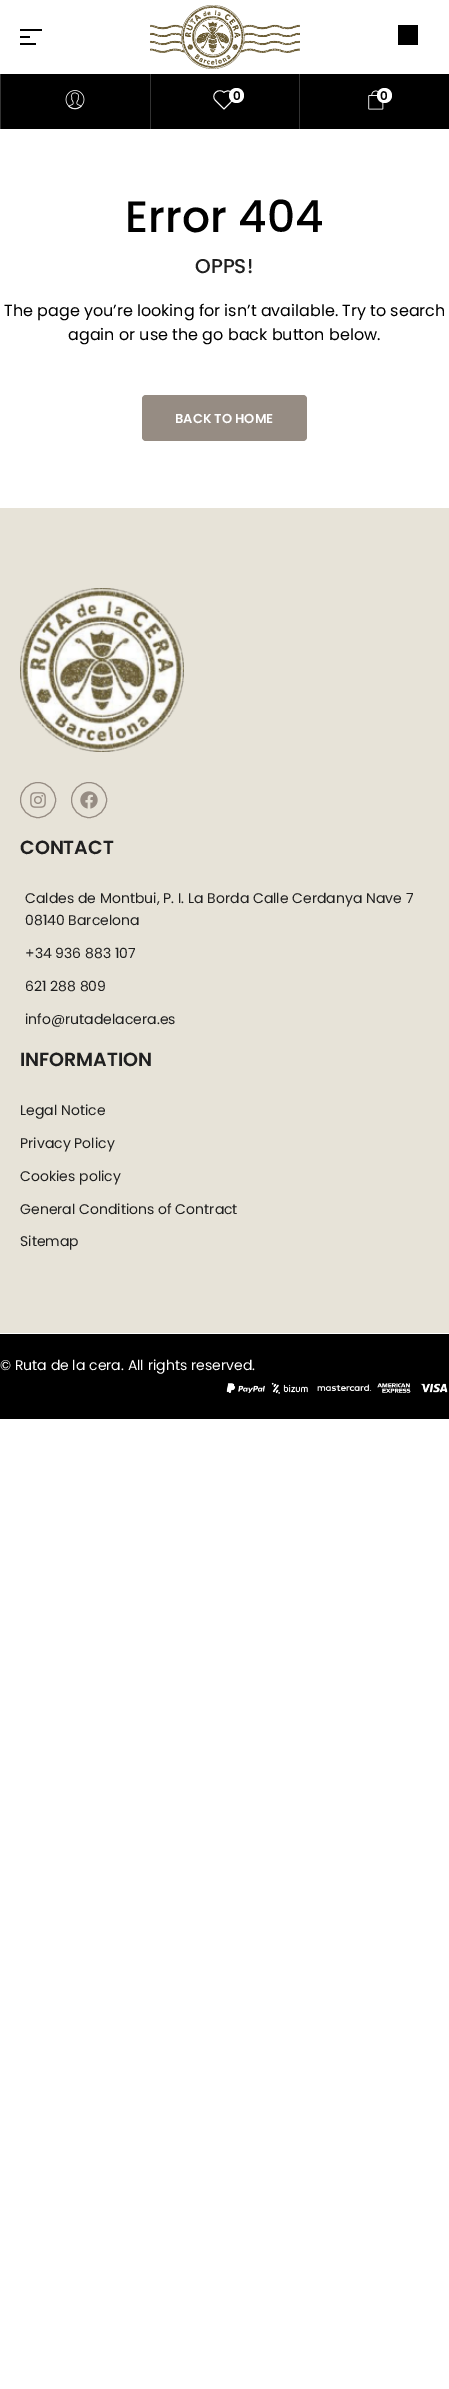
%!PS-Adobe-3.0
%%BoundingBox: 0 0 449 2389
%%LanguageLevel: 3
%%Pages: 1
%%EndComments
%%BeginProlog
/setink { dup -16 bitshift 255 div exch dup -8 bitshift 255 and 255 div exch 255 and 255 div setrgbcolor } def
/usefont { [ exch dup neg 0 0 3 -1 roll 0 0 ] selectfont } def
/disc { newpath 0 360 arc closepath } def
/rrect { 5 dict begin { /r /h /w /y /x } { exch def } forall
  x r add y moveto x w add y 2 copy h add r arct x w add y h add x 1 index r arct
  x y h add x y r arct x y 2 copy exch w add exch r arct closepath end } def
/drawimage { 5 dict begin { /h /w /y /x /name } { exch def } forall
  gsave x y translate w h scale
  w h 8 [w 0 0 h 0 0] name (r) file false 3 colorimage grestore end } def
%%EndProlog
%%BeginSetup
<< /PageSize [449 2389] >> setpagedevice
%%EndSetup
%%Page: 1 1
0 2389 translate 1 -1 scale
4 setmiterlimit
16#FFFFFF setink
0 0 449 2389 rectfill
(img1.raw) 20 29 22 16 drawimage
(img2.raw) 150 5 150 64 drawimage
[
    [398 25 20 20 16#000000]
    [1 74 448 55 16#000000]
    [0 74 1 55 16#333333]
] { aload pop setink rectfill } forall
(img3.raw) 65 90 20 20 drawimage
150 74 1 55 rectfill
16#FFFFFF setink
0.8 setlinewidth
1 setlinecap
1 setlinejoin
215.5 100.5 moveto 210 95 218.5 87 224 92.5 curveto 228.5 88 236 93 233.5 98.5 curveto 232.5 101 226 107 224 109 curveto closepath stroke
236.5 95.5 7.5 disc fill
/Poppins-SemiBold 12 usefont
16#000000 setink
233 100 moveto (0) show
16#333333 setink
299 74 1 55 rectfill
(img4.raw) 368 90 16 20 drawimage
16#FFFFFF setink
384.5 95.5 7.5 disc fill
16#000000 setink
380 100 moveto (0) show
/Poppins-Medium 44 usefont
125 232 moveto (Error 404) show
/Poppins-Medium 20 usefont
16#202020 setink
195 273 moveto (OPPS!) show
/Poppins-Regular 16 usefont
16#000000 setink
4 316 moveto (The page you’re looking for isn’t available. Try to search) show
68 340 moveto (again or use the go back button below.) show
16#968C83 setink
142 395 165 46 4 rrect fill
/Poppins-SemiBold 13 usefont
16#FFFFFF setink
175 423 moveto (BACK TO HOME) show
16#E7E3D8 setink
0 508 449 825 rectfill
(img5.raw) 20 588 164 164 drawimage
16#968C83 setink
1 setlinewidth
0 setlinecap
0 setlinejoin
38 800 17.5 disc stroke
(img6.raw) 30 792 16 16 drawimage
89 800 17.5 disc stroke
(img7.raw) 80 791 18 18 drawimage
/Poppins-SemiBold 19 usefont
16#202020 setink
20 854 moveto (CONTACT) show
/Poppins-Regular 14 usefont
[
    [(Caldes de Montbui, P. I. La Borda Calle Cerdanya Nave 7) 25 903]
    [(08140 Barcelona) 25 925]
    [(+34 936 883 107) 25 958]
    [(621 288 809) 25 991]
    [(info@rutadelacera.es) 25 1024]
] { aload pop moveto show } forall
/Poppins-SemiBold 19 usefont
20 1066 moveto (INFORMATION) show
/Poppins-Regular 14 usefont
[
    [(Legal Notice) 20 1115]
    [(Privacy Policy) 20 1148]
    [(Cookies policy) 20 1181]
    [(General Conditions of Contract) 20 1214]
    [(Sitemap) 20 1246]
] { aload pop moveto show } forall
16#000000 setink
0 1334 449 85 rectfill
16#FFFFFF setink
0 1370 moveto (© Ruta de la cera. All rights reserved.) show
(img8.raw) 226 1382 222 12 drawimage
showpage
%%EOF
